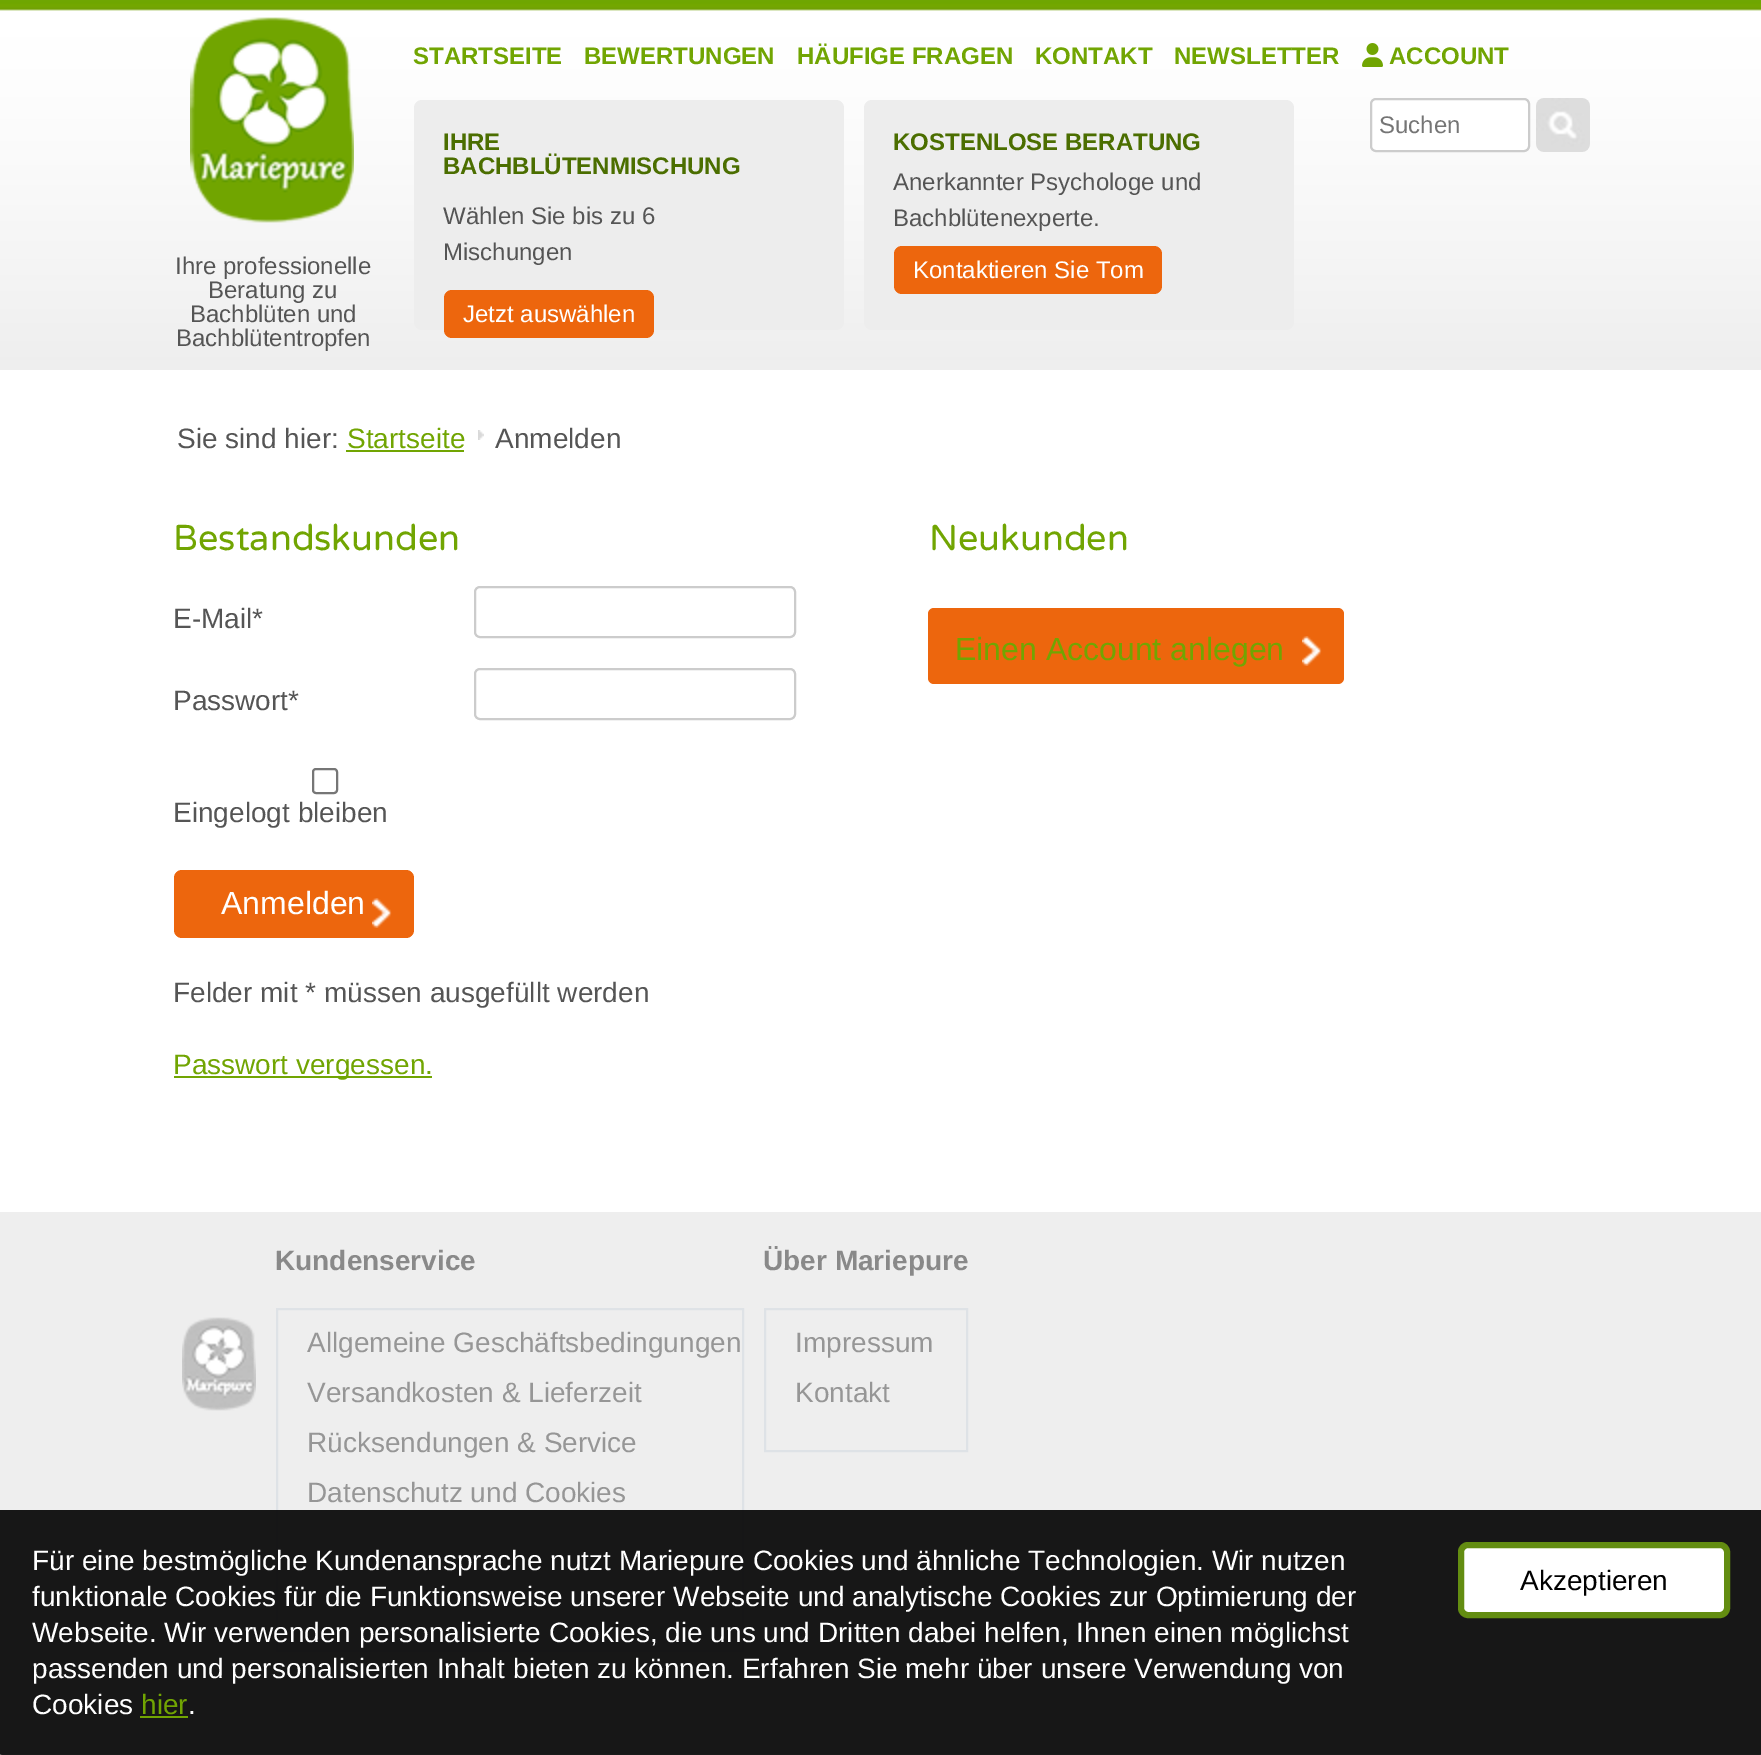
%!PS-Adobe-3.0
%%BoundingBox: 0 0 1761 1755
%%LanguageLevel: 3
%%Pages: 1
%%EndComments
%%BeginProlog
/setink { dup -16 bitshift 255 div exch dup -8 bitshift 255 and 255 div exch 255 and 255 div setrgbcolor } def
/usefont { [ exch dup neg 0 0 3 -1 roll 0 0 ] selectfont } def
/setalpha { dup .setfillconstantalpha .setstrokeconstantalpha } def
/rrect { 5 dict begin { /r /h /w /y /x } { exch def } forall
  x r add y moveto x w add y 2 copy h add r arct x w add y h add x 1 index r arct
  x y h add x y r arct x y 2 copy exch w add exch r arct closepath end } def
/softshadow { 12 dict begin { /a /b /q /h /w /y /x } { exch def } forall gsave /was 0 def
  9 -2 -9 { dup b mul 4 div /e exch def 1 sub .425 mul 2.718 exch exp 1 add a .99 .min exch div /now exch def
    1 1 now sub 1 was sub div sub setalpha /was now def
    w h .min e 2 mul add 0 gt { x e sub y e sub w e 2 mul add h e 2 mul add
      q e add b .6 mul add w h .min 2 div e add .min 0 .max rrect fill } if } for grestore end } def
/drawimage { 5 dict begin { /h /w /y /x /name } { exch def } forall
  gsave x y translate w h scale
  w h 8 [w 0 0 h 0 0] name (r) file false 3 colorimage grestore end } def
%%EndProlog
%%BeginSetup
<< /PageSize [1761 1755] /PageUsesTransparency true >> setpagedevice
%%EndSetup
%%Page: 1 1
0 .pushpdf14devicefilter
0 1755 translate 1 -1 scale
4 setmiterlimit
16#FFFFFF setink
0 0 1761 1755 rectfill
(img1.raw) 0 0 1761 370 drawimage
/LiberationSans-Bold 24 usefont
16#71A502 setink
[
    [(STARTSEITE) 413 64]
    [(BEWERTUNGEN) 584 64]
    [(HÄUFIGE FRAGEN) 797 64]
    [(KONTAKT) 1035 64]
    [(NEWSLETTER) 1174 64]
] { aload pop moveto show } forall
(img2.raw) 1362 43 21 24 drawimage
1389 64 moveto (ACCOUNT) show
16#FFFFFF setink
1371 99 158 52 5 rrect gsave fill grestore
16#CCCCCC setink
2 setlinewidth
stroke
/LiberationSans-Regular 24 usefont
16#757575 setink
1379 133 moveto (Suchen) show
(img3.raw) 1536 98 54 54 drawimage
(img4.raw) 190 17 164 206 drawimage
16#555555 setink
[
    [(Ihre professionelle) 175 274]
    [(Beratung zu) 208 298]
    [(Bachblüten und) 190 322]
    [(Bachblütentropfen) 176 346]
] { aload pop moveto show } forall
16#EDEDED setink
414 100 430 230 8 rrect fill
/LiberationSans-Bold 24 usefont
16#4B6E00 setink
443 150 moveto (IHRE) show
443 174 moveto (BACHBLÜTENMISCHUNG) show
/LiberationSans-Regular 24 usefont
16#555555 setink
443 224 moveto (Wählen Sie bis zu 6) show
443 260 moveto (Mischungen) show
16#ED660D setink
444 290 210 48 8 rrect fill
16#FFFFFF setink
463 322 moveto (Jetzt auswählen) show
16#EDEDED setink
864 100 430 230 8 rrect fill
/LiberationSans-Bold 24 usefont
16#4B6E00 setink
893 150 moveto (KOSTENLOSE BERATUNG) show
/LiberationSans-Regular 24 usefont
16#555555 setink
893 190 moveto (Anerkannter Psychologe und) show
893 226 moveto (Bachblütenexperte.) show
16#ED660D setink
894 246 268 48 8 rrect fill
16#FFFFFF setink
913 278 moveto (Kontaktieren Sie Tom) show
/LiberationSans-Regular 28 usefont
16#555555 setink
177 448 moveto (Sie sind hier:) show
16#71A502 setink
347 448 moveto (Startseite) show
346 450 118 2 rectfill
(img5.raw) 478 430 6 10 drawimage
16#555555 setink
495 448 moveto (Anmelden) show
/VarelaRound-Regular 36 usefont
16#71A502 setink
173 550 moveto (Bestandskunden) show
/LiberationSans-Regular 28 usefont
16#555555 setink
173 628 moveto (E-Mail*) show
16#CCCCCC setink
475 587 320 50 5 rrect stroke
16#555555 setink
173 710 moveto (Passwort*) show
16#CCCCCC setink
475 669 320 50 5 rrect stroke
16#767676 setink
313 769 24 24 3 rrect stroke
16#555555 setink
173 822 moveto (Eingelogt bleiben) show
16#ED660D setink
174 870 240 68 8 rrect fill
(img6.raw) 372 898 20 30 drawimage
/LiberationSans-Regular 32 usefont
16#FFFFFF setink
221 914 moveto (Anmelden) show
/LiberationSans-Regular 28 usefont
16#555555 setink
173 1002 moveto (Felder mit * müssen ausgefüllt werden) show
16#71A502 setink
174 1076 258 2 rectfill
173 1074 moveto (Passwort vergessen.) show
/VarelaRound-Regular 36 usefont
929 550 moveto (Neukunden) show
16#ED660D setink
928 608 416 76 6 rrect fill
(img6.raw) 1302 636 20 30 drawimage
/LiberationSans-Regular 32 usefont
16#71A502 setink
955 660 moveto (Einen Account anlegen) show
16#EEEEEE setink
0 1212 1761 543 rectfill
(img7.raw) 182 1317 74 94 drawimage
/LiberationSans-Bold 28 usefont
16#898989 setink
275 1270 moveto (Kundenservice) show
16#DEE2E6 setink
277 1309 466 342 rectstroke
/LiberationSans-Regular 28 usefont
16#969696 setink
[
    [(Allgemeine Geschäftsbedingungen) 307 1352]
    [(Versandkosten & Lieferzeit) 307 1402]
    [(Rücksendungen & Service) 307 1452]
    [(Datenschutz und Cookies) 307 1502]
] { aload pop moveto show } forall
/LiberationSans-Bold 28 usefont
16#898989 setink
763 1270 moveto (Über Mariepure) show
16#DEE2E6 setink
765 1309 202 142 rectstroke
/LiberationSans-Regular 28 usefont
16#969696 setink
795 1352 moveto (Impressum) show
795 1402 moveto (Kontakt) show
gsave
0 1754 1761 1 rectclip
16#000000 setink
0 1514 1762 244 0 1 0.9 softshadow
grestore
0.9 setalpha
16#000000 setink
0 1510 1761 244 rectfill
1 setalpha
16#FFFFFF setink
[
    [(Für eine bestmögliche Kundenansprache nutzt Mariepure Cookies und ähnliche Technologien. Wir nutzen) 32 1570]
    [(funktionale Cookies für die Funktionsweise unserer Webseite und analytische Cookies zur Optimierung der) 32 1606]
    [(Webseite. Wir verwenden personalisierte Cookies, die uns und Dritten dabei helfen, Ihnen einen möglichst) 32 1642]
    [(passenden und personalisierten Inhalt bieten zu können. Erfahren Sie mehr über unsere Verwendung von) 32 1678]
    [(Cookies) 32 1714]
] { aload pop moveto show } forall
16#71A502 setink
141 1714 moveto (hier) show
140 1716 48 2 rectfill
16#FFFFFF setink
188 1714 moveto (.) show
1461 1545 266 70 7 rrect gsave fill grestore
16#638D11 setink
6 setlinewidth
stroke
16#000000 setink
1520 1590 moveto (Akzeptieren) show
.poppdf14devicefilter showpage
%%EOF
